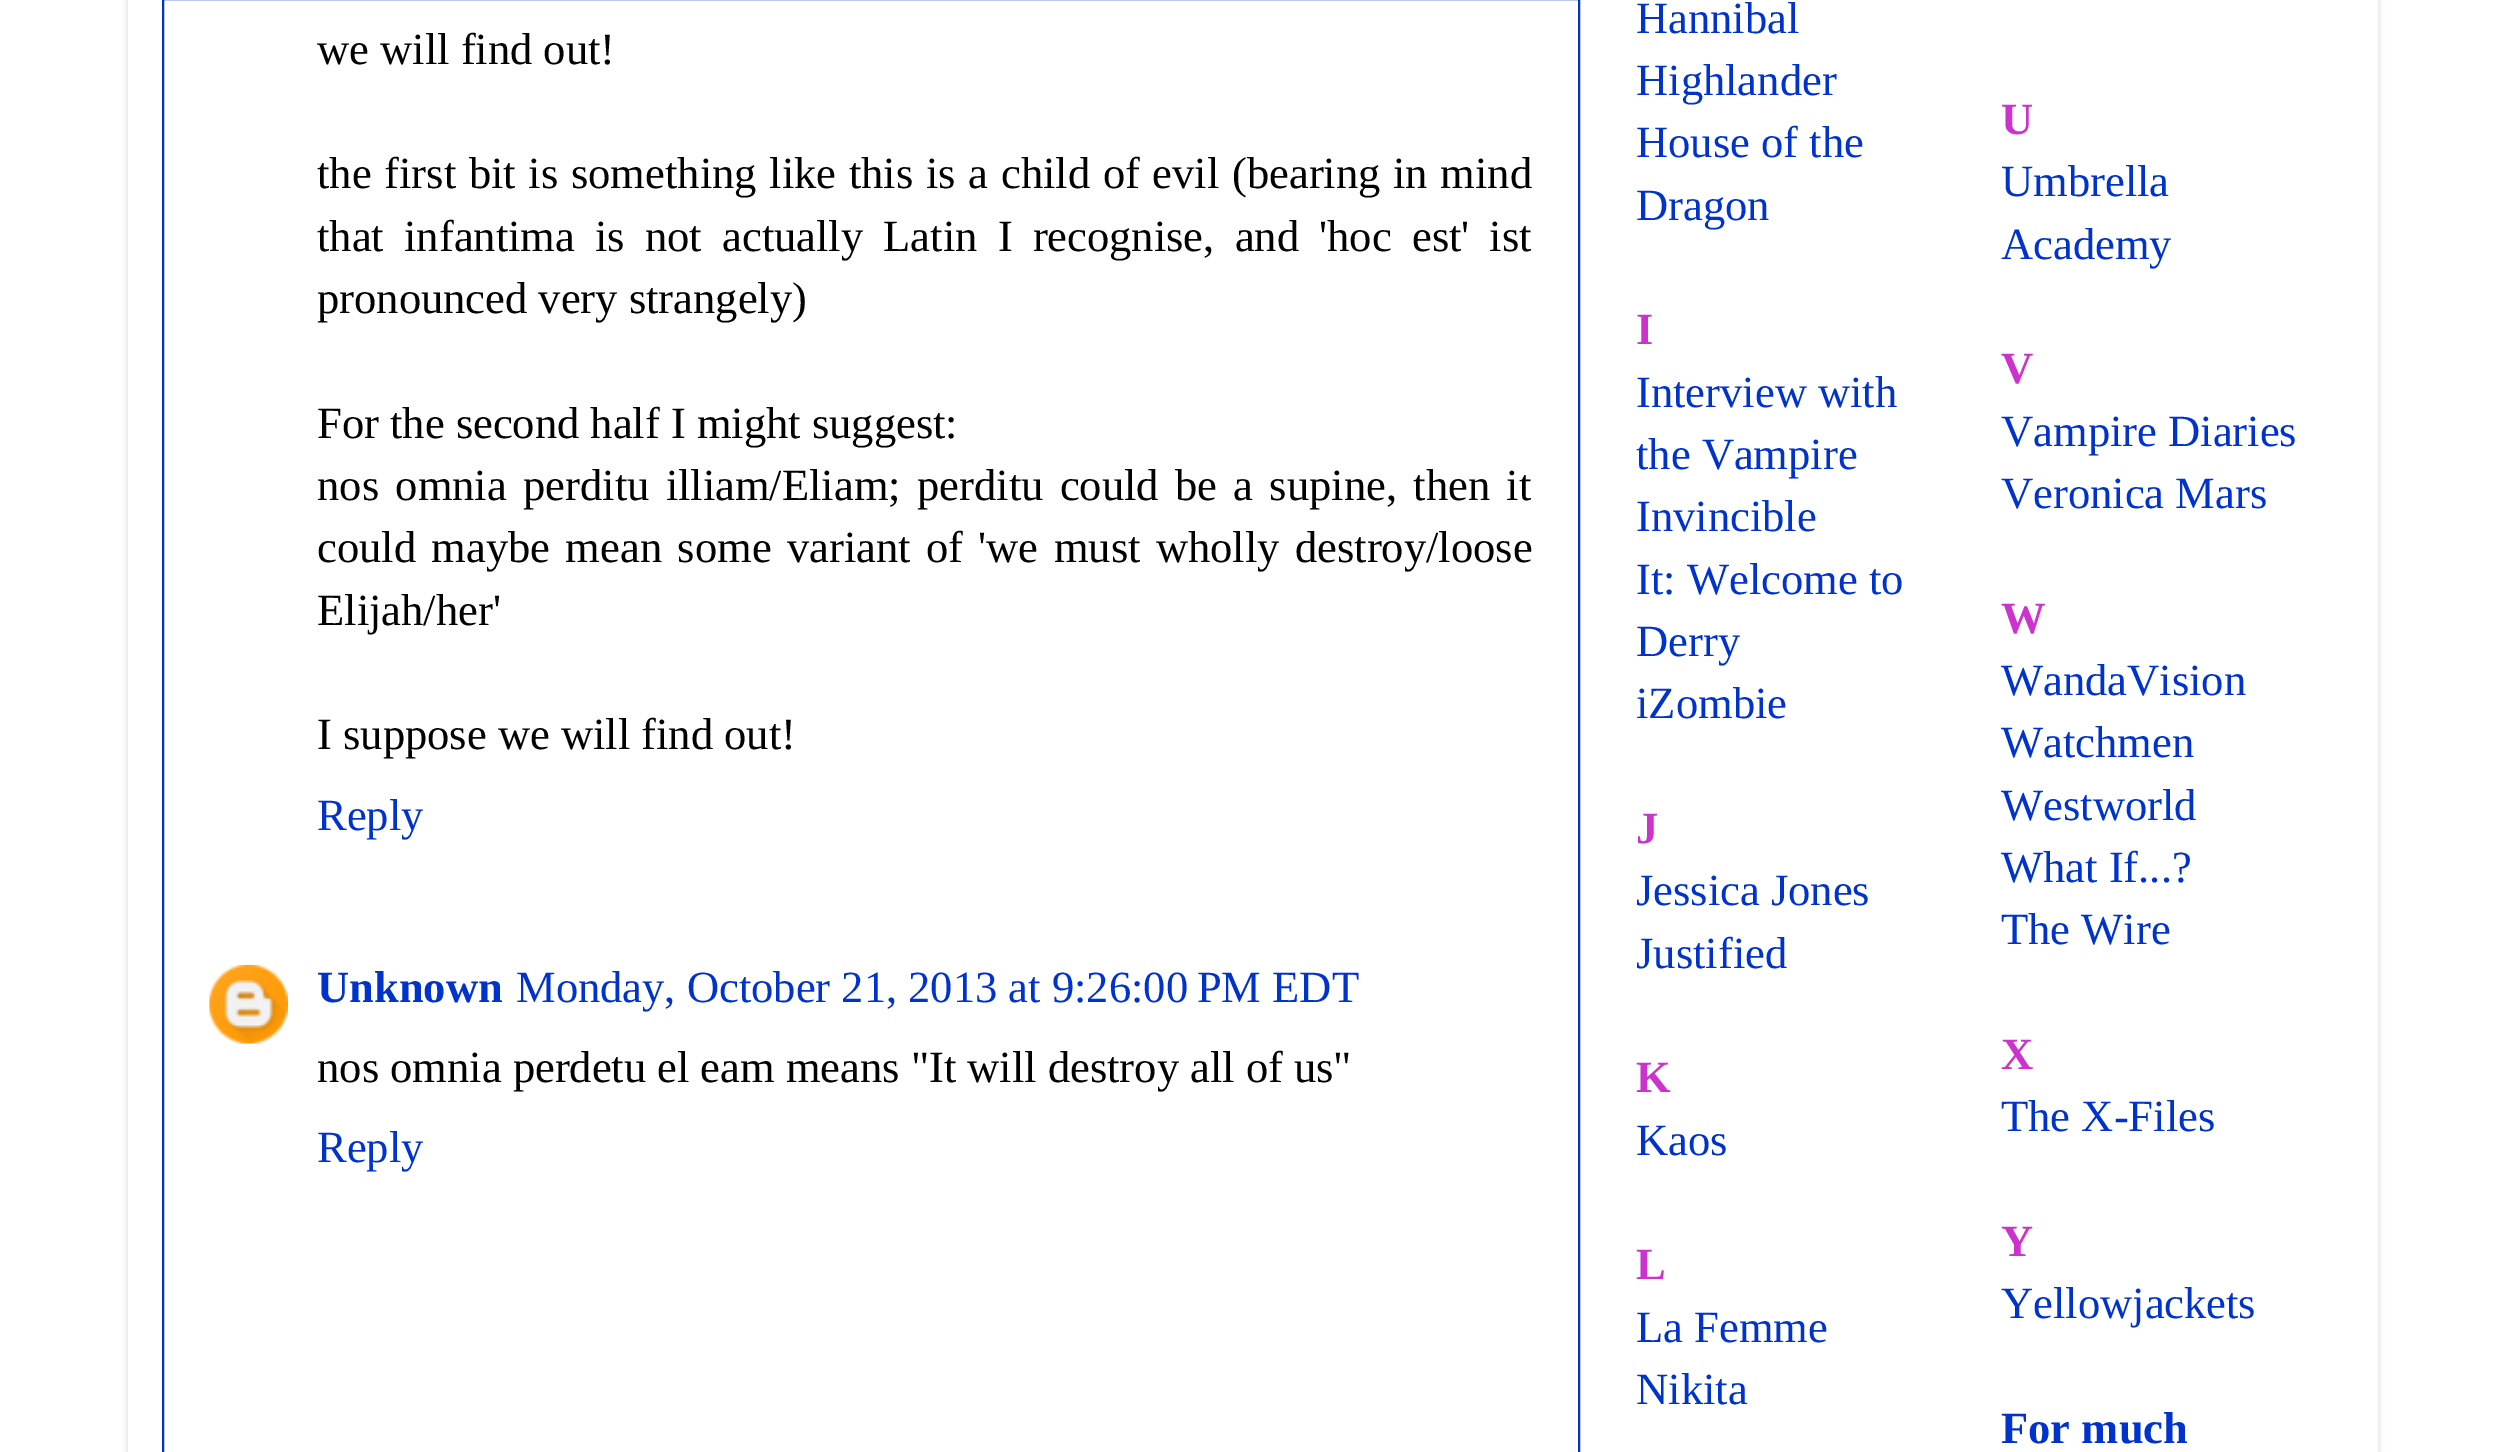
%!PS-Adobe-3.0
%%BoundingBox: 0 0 2505 1452
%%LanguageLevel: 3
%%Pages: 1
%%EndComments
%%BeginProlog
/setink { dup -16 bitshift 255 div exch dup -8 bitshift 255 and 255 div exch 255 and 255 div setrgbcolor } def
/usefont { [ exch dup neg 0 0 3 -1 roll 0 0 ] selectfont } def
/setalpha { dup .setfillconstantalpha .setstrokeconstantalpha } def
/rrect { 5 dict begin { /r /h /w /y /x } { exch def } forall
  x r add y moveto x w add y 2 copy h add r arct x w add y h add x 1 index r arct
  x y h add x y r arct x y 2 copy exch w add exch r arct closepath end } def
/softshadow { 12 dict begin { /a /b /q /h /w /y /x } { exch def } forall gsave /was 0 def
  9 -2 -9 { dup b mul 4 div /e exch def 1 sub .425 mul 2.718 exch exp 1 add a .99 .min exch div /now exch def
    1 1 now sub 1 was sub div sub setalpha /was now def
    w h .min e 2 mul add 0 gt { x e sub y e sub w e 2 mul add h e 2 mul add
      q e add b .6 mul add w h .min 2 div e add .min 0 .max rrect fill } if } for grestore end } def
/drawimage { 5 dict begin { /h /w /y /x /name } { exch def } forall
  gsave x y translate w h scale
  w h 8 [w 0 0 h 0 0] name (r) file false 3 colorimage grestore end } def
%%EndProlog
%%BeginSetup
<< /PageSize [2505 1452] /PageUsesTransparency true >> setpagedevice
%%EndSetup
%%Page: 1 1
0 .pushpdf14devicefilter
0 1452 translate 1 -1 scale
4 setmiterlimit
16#FFFFFF setink
0 0 2505 1452 rectfill
gsave
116 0 moveto 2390 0 lineto 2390 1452 lineto 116 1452 lineto closepath 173 -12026 moveto 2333 -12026 lineto 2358 -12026 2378 -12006 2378 -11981 curveto 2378 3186 lineto 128 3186 lineto 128 -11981 lineto 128 -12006 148 -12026 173 -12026 curveto closepath eoclip newpath
16#000000 setink
128 -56 2250 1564 45 3.5 0.15 softshadow
grestore
16#0033CC setink
2 setlinewidth
163 -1 1416 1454 rectstroke
/LiberationSerif-Regular 44.55 usefont
16#000000 setink
317 64 moveto (we will find out!) show
317 188 moveto 1.6 0 32 (the first bit is something like this is a child of evil \(bearing in mind) widthshow
317 251 moveto 9.1 0 32 (that infantima is not actually Latin I recognise, and 'hoc est' ist) widthshow
317 313 moveto (pronounced very strangely\)) show
317 438 moveto (For the second half I might suggest:) show
317 500 moveto 5.25 0 32 (nos omnia perditu illiam/Eliam; perditu could be a supine, then it) widthshow
317 562 moveto 4.25 0 32 (could maybe mean some variant of 'we must wholly destroy/loose) widthshow
317 625 moveto (Elijah/her') show
317 749 moveto (I suppose we will find out!) show
16#0033CC setink
317 830 moveto (Reply) show
(img1.raw) 209 964 79 80 drawimage
/LiberationSerif-Bold 44.55 usefont
317 1002 moveto (Unknown) show
/LiberationSerif-Regular 44.55 usefont
516 1002 moveto (Monday, October 21, 2013 at 9:26:00 PM EDT) show
16#000000 setink
317 1082 moveto (nos omnia perdetu el eam means "It will destroy all of us") show
16#0033CC setink
[
    [(Reply) 317 1162]
    [(Hannibal) 1636 33]
    [(Highlander) 1636 95]
    [(House of the) 1636 157]
    [(Dragon) 1636 220]
] { aload pop moveto show } forall
/LiberationSerif-Bold 44.55 usefont
16#CC33CC setink
1636 344 moveto (I) show
/LiberationSerif-Regular 44.55 usefont
16#0033CC setink
[
    [(Interview with) 1636 407]
    [(the Vampire) 1636 469]
    [(Invincible) 1636 531]
    [(It: Welcome to) 1636 594]
    [(Derry) 1636 656]
    [(iZombie) 1636 718]
] { aload pop moveto show } forall
/LiberationSerif-Bold 44.55 usefont
16#CC33CC setink
1636 843 moveto (J) show
/LiberationSerif-Regular 44.55 usefont
16#0033CC setink
1636 905 moveto (Jessica Jones) show
1636 968 moveto (Justified) show
/LiberationSerif-Bold 44.55 usefont
16#CC33CC setink
1636 1092 moveto (K) show
/LiberationSerif-Regular 44.55 usefont
16#0033CC setink
1636 1155 moveto (Kaos) show
/LiberationSerif-Bold 44.55 usefont
16#CC33CC setink
1636 1279 moveto (L) show
/LiberationSerif-Regular 44.55 usefont
16#0033CC setink
1636 1342 moveto (La Femme) show
1636 1404 moveto (Nikita) show
/LiberationSerif-Bold 44.55 usefont
16#CC33CC setink
2001 134 moveto (U) show
/LiberationSerif-Regular 44.55 usefont
16#0033CC setink
2001 196 moveto (Umbrella) show
2001 259 moveto (Academy) show
/LiberationSerif-Bold 44.55 usefont
16#CC33CC setink
2001 383 moveto (V) show
/LiberationSerif-Regular 44.55 usefont
16#0033CC setink
2001 446 moveto (Vampire Diaries) show
2001 508 moveto (Veronica Mars) show
/LiberationSerif-Bold 44.55 usefont
16#CC33CC setink
2001 633 moveto (W) show
/LiberationSerif-Regular 44.55 usefont
16#0033CC setink
[
    [(WandaVision) 2001 695]
    [(Watchmen) 2001 757]
    [(Westworld) 2001 820]
    [(What If...?) 2001 882]
    [(The Wire) 2001 944]
] { aload pop moveto show } forall
/LiberationSerif-Bold 44.55 usefont
16#CC33CC setink
2001 1069 moveto (X) show
/LiberationSerif-Regular 44.55 usefont
16#0033CC setink
2001 1131 moveto (The X-Files) show
/LiberationSerif-Bold 44.55 usefont
16#CC33CC setink
2001 1256 moveto (Y) show
/LiberationSerif-Regular 44.55 usefont
16#0033CC setink
2001 1318 moveto (Yellowjackets) show
/LiberationSerif-Bold 44.55 usefont
2001 1443 moveto (For much) show
.poppdf14devicefilter showpage
%%EOF
